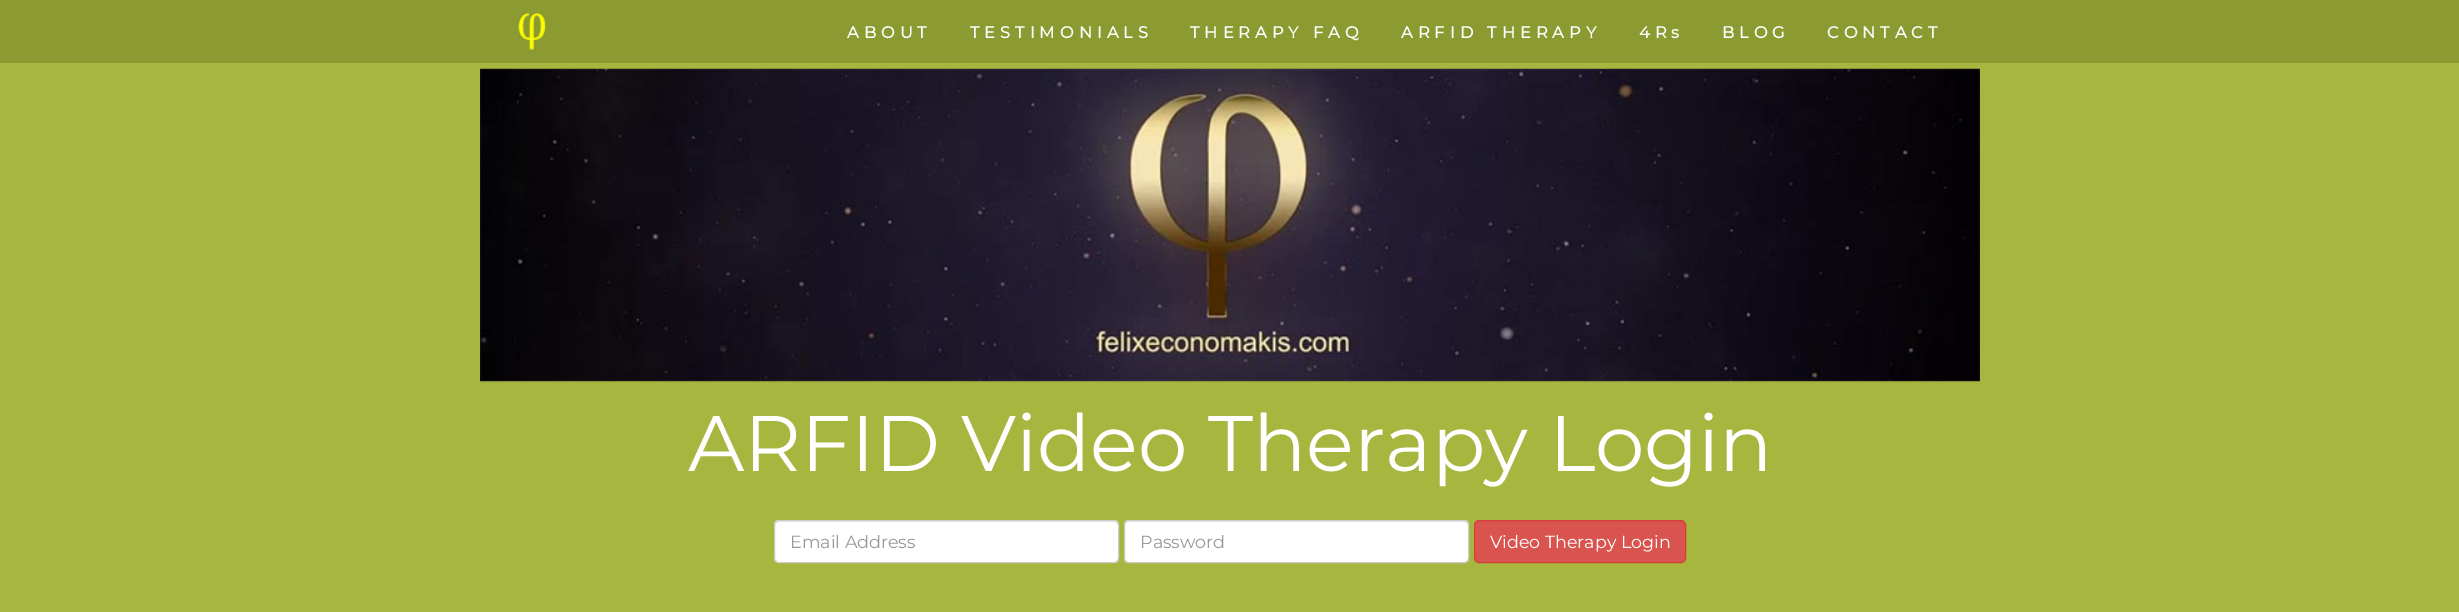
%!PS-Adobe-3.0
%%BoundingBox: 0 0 2459 612
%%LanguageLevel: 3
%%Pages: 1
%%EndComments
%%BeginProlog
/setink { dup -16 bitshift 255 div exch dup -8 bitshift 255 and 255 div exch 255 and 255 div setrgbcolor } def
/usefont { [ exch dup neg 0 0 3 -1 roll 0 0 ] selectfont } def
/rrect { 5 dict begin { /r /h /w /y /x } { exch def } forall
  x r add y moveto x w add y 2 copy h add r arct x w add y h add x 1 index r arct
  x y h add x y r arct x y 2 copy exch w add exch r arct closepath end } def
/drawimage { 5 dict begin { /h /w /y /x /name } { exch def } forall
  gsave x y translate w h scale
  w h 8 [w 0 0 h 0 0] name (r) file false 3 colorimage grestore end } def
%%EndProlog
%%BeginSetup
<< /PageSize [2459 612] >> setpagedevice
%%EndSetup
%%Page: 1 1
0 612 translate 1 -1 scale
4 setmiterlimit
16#A6B63F setink
0 0 2459 612 rectfill
16#8C9A32 setink
0 0 2459 63 rectfill
(img1.raw) 518 12 28 38 drawimage
/Montserrat-Bold 16.25 usefont
16#FFFFFF setink
847 38 moveto 5 0 (ABOUT) ashow
970 38 moveto 5 0 (TESTIMONIALS) ashow
1190 38 moveto 5 0 (THERAPY FAQ) ashow
1401 38 moveto 5 0 (ARFID THERAPY) ashow
1639 38 moveto 5 0 (4Rs) ashow
1722 38 moveto 5 0 (BLOG) ashow
1827 38 moveto 5 0 (CONTACT) ashow
(img2.raw) 480 68 1500 314 drawimage
/Montserrat-Thin 78.75 usefont
688 471 moveto (ARFID Video Therapy Login) show
774 520 345 43 5 rrect fill
16#ECECEC setink
779 522 moveto 1114 522 lineto 1116 522 1118 524 1118 526 curveto 1118 525 lineto 1118 523 1116 521 1114 521 curveto 779 521 lineto 777 521 775 523 775 525 curveto 775 526 lineto 775 524 777 522 779 522 curveto closepath fill
16#CCCCCC setink
774.5 520.5 344 42 4.5 rrect stroke
/Montserrat-Thin 17.5 usefont
16#999999 setink
790 548 moveto (Email Address) show
16#FFFFFF setink
1124 520 345 43 5 rrect fill
16#ECECEC setink
1129 522 moveto 1464 522 lineto 1466 522 1468 524 1468 526 curveto 1468 525 lineto 1468 523 1466 521 1464 521 curveto 1129 521 lineto 1127 521 1125 523 1125 525 curveto 1125 526 lineto 1125 524 1127 522 1129 522 curveto closepath fill
16#CCCCCC setink
1124.5 520.5 344 42 4.5 rrect stroke
16#999999 setink
1140 548 moveto (Password) show
16#D9534F setink
1474.5 520.5 211 42 4.5 rrect gsave fill grestore
16#D43F3A setink
stroke
16#FFFFFF setink
1490 548 moveto (Video Therapy Login) show
showpage
%%EOF
